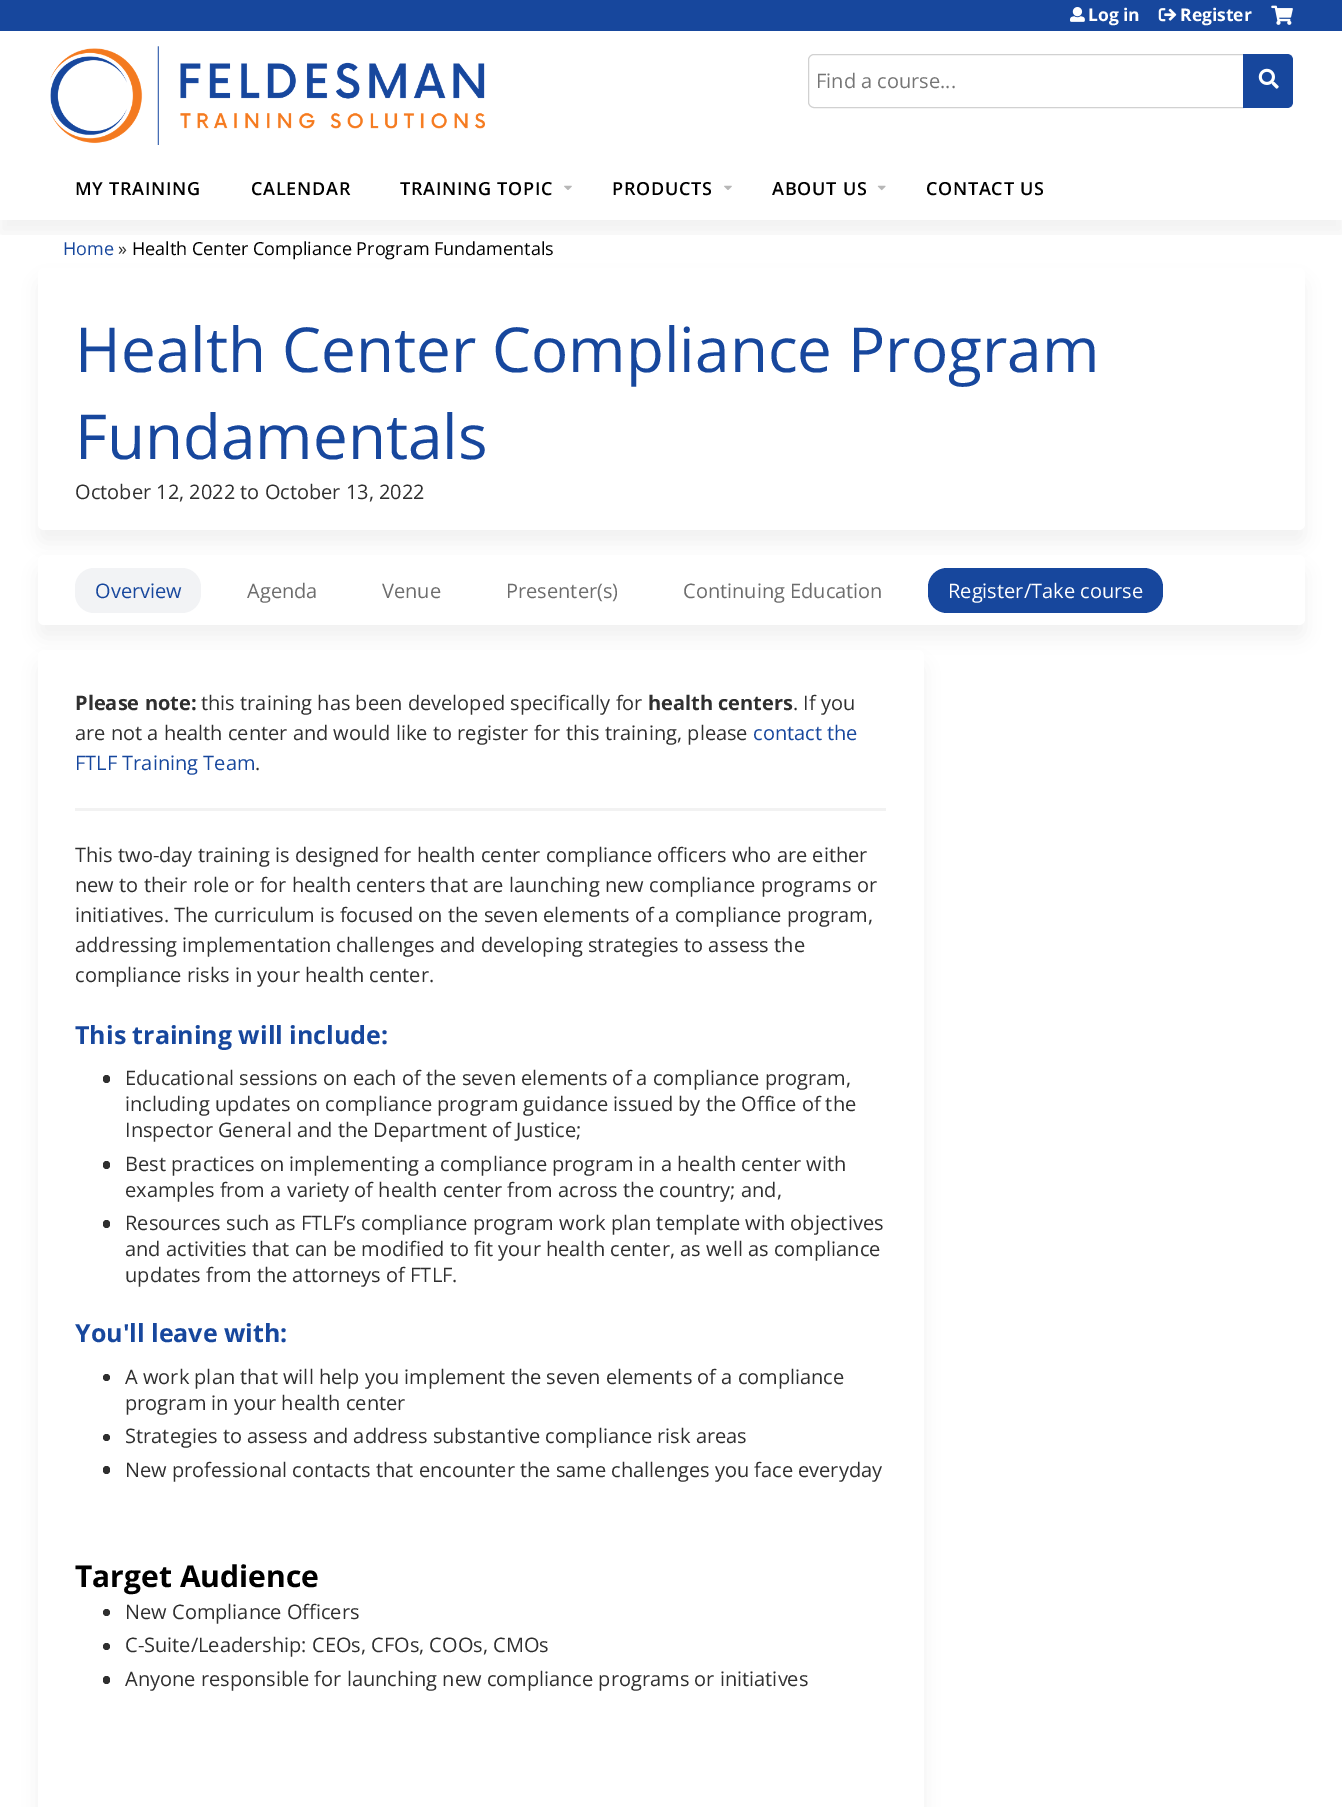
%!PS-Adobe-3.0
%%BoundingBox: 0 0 1342 1807
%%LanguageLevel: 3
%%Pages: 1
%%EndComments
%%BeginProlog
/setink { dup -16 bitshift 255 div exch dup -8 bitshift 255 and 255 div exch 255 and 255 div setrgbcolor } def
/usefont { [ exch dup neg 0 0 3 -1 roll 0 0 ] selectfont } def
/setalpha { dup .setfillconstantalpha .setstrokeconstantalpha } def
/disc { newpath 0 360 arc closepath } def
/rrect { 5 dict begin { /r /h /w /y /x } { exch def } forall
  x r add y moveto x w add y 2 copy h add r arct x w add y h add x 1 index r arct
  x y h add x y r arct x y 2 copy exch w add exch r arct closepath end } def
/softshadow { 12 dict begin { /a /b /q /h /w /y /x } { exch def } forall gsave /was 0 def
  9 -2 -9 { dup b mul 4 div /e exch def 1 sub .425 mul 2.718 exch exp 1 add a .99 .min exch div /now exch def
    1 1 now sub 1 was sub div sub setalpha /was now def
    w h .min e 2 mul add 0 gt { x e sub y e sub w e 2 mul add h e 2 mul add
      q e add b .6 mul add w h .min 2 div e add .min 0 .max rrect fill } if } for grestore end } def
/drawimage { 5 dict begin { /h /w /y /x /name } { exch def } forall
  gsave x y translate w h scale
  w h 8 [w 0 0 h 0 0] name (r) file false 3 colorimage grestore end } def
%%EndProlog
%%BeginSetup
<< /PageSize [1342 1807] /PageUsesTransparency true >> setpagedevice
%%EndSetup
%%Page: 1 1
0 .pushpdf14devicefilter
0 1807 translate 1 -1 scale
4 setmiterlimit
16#FFFFFF setink
0 0 1342 1807 rectfill
16#17479D setink
0 0 1342 31 rectfill
(img1.raw) 50 46 435 99 drawimage
(img2.raw) 1070 7 15 15 drawimage
/OpenSans-Bold 17.5 usefont
16#FFFFFF setink
1088 21 moveto (Log in) show
(img3.raw) 1158 8 19 14 drawimage
1180 21 moveto (Register) show
(img4.raw) 1271 5 22 20 drawimage
16#D1D1D1 setink
814 54.5 moveto 1243.5 54.5 lineto 1243.5 107.5 lineto 814 107.5 lineto 811 107.5 808.5 105 808.5 102 curveto 808.5 60 lineto 808.5 57 811 54.5 814 54.5 curveto closepath stroke
16#17479D setink
1243 54 moveto 1287 54 lineto 1290.5 54 1293 56.5 1293 60 curveto 1293 102 lineto 1293 105.5 1290.5 108 1287 108 curveto 1243 108 lineto closepath fill
/OpenSans-Regular 20 usefont
16#757575 setink
816 88 moveto (Find a course...) show
(img5.raw) 1258 68 21 21 drawimage
gsave
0 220 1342 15 rectclip
16#000000 setink
0 173 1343 60 0 9.5 0.05 softshadow
grestore
/OpenSans-SemiBold 18 usefont
16#000000 setink
75 195 moveto 0.75 0 (MY TRAINING) ashow
251 195 moveto 0.75 0 (CALENDAR) ashow
400 195 moveto 0.75 0 (TRAINING TOPIC) ashow
(img6.raw) 564 185 8 5 drawimage
612 195 moveto 0.75 0 (PRODUCTS) ashow
(img6.raw) 724 185 8 5 drawimage
772 195 moveto 0.75 0 (ABOUT US) ashow
(img7.raw) 877 185 9 6 drawimage
926 195 moveto 0.75 0 (CONTACT US) ashow
/OpenSans-Regular 18 usefont
16#17479D setink
63 255 moveto (Home) show
16#2F2F2F setink
118 255 moveto (») show
16#000000 setink
132 255 moveto (Health Center Compliance Program Fundamentals) show
38 280 1267 263 6 9.5 0.05 softshadow
16#FFFFFF setink
38 268 1267 262 6 rrect fill
/OpenSans-Regular 62 usefont
16#17479D setink
75 372 moveto (Health Center Compliance Program) show
75 459 moveto (Fundamentals) show
/OpenSans-Regular 20 usefont
16#2F2F2F setink
75 499 moveto (October 12, 2022 to October 13, 2022) show
16#000000 setink
38 568 1267 70 6 9.5 0.05 softshadow
16#FFFFFF setink
38 555 1267 70 6 rrect fill
16#F2F3F5 setink
75 568 126 45 19 rrect fill
16#17479D setink
95 598 moveto (Overview) show
16#6D6D6D setink
[
    [(Agenda) 247 598]
    [(Venue) 382 598]
    [(Presenter\(s\)) 506 598]
    [(Continuing Education) 683 598]
] { aload pop moveto show } forall
16#17479D setink
928 568 235 45 19 rrect fill
16#FFFFFF setink
948 598 moveto (Register/Take course) show
16#000000 setink
38 663 886 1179 6 9.5 0.05 softshadow
16#FFFFFF setink
38 650 886 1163 6 rrect fill
/OpenSans-Bold 20 usefont
16#2F2F2F setink
75 710 moveto (Please note:) show
/OpenSans-Regular 20 usefont
201 710 moveto (this training has been developed specifically for) show
/OpenSans-Bold 20 usefont
648 710 moveto (health centers) show
/OpenSans-Regular 20 usefont
793 710 moveto (. If you) show
75 740 moveto (are not a health center and would like to register for this training, please) show
16#17479D setink
753 740 moveto (contact the) show
75 770 moveto (FTLF Training Team) show
16#2F2F2F setink
255 770 moveto (.) show
16#F2F2F2 setink
75 808 811 3 rectfill
16#2F2F2F setink
[
    [(This two-day training is designed for health center compliance officers who are either) 75 862]
    [(new to their role or for health centers that are launching new compliance programs or) 75 892]
    [(initiatives. The curriculum is focused on the seven elements of a compliance program,) 75 922]
    [(addressing implementation challenges and developing strategies to assess the) 75 952]
    [(compliance risks in your health center.) 75 982]
] { aload pop moveto show } forall
/OpenSans-Bold 25 usefont
16#17479D setink
75 1044 moveto (This training will include:) show
16#2F2F2F setink
103 1075 7 8 3.5 rrect fill
/OpenSans-Regular 20 usefont
[
    [(Educational sessions on each of the seven elements of a compliance program,) 125 1085]
    [(including updates on compliance program guidance issued by the Office of the) 125 1111]
    [(Inspector General and the Department of Justice;) 125 1137]
] { aload pop moveto show } forall
103 1161 7 8 3.5 rrect fill
125 1171 moveto (Best practices on implementing a compliance program in a health center with) show
125 1197 moveto (examples from a variety of health center from across the country; and,) show
103 1220 7 8 3.5 rrect fill
[
    [(Resources such as FTLF’s compliance program work plan template with objectives) 125 1230]
    [(and activities that can be modified to fit your health center, as well as compliance) 125 1256]
    [(updates from the attorneys of FTLF.) 125 1282]
] { aload pop moveto show } forall
/OpenSans-Bold 25 usefont
16#17479D setink
75 1342 moveto (You'll leave with:) show
16#2F2F2F setink
106.5 1377.5 3.5 disc fill
/OpenSans-Regular 20 usefont
125 1384 moveto (A work plan that will help you implement the seven elements of a compliance) show
125 1410 moveto (program in your health center) show
106.5 1437.5 3.5 disc fill
125 1443 moveto (Strategies to assess and address substantive compliance risk areas) show
103 1466 7 8 3.5 rrect fill
125 1477 moveto (New professional contacts that encounter the same challenges you face everyday) show
/OpenSans-Bold 30 usefont
16#000000 setink
75 1587 moveto (Target Audience) show
16#2F2F2F setink
106.5 1612.5 3.5 disc fill
/OpenSans-Regular 20 usefont
125 1619 moveto (New Compliance Officers) show
106.5 1646.5 3.5 disc fill
125 1652 moveto (C-Suite/Leadership: CEOs, CFOs, COOs, CMOs) show
103 1676 7 8 3.5 rrect fill
125 1686 moveto (Anyone responsible for launching new compliance programs or initiatives) show
.poppdf14devicefilter showpage
%%EOF
